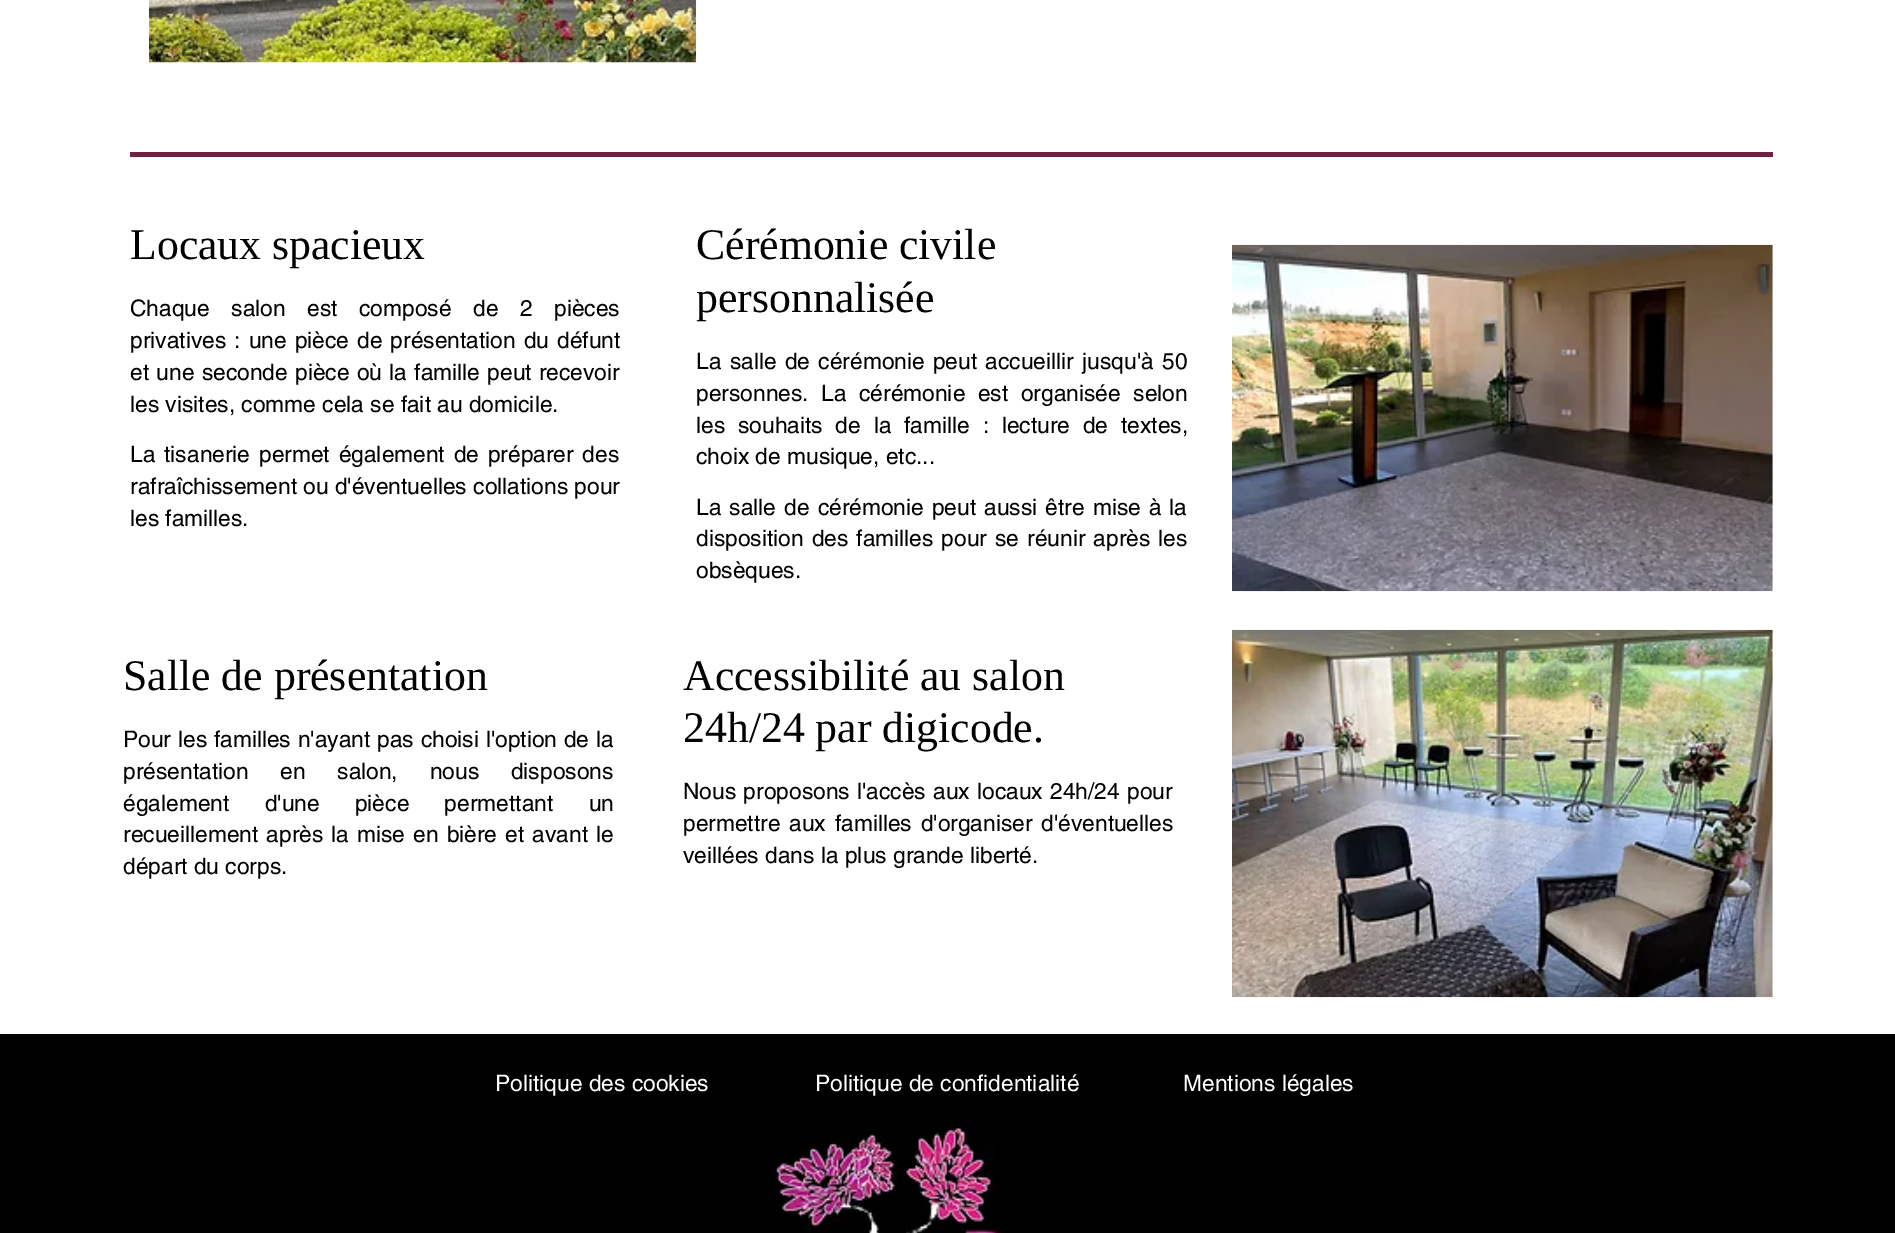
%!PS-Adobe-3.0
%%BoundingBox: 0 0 1895 1233
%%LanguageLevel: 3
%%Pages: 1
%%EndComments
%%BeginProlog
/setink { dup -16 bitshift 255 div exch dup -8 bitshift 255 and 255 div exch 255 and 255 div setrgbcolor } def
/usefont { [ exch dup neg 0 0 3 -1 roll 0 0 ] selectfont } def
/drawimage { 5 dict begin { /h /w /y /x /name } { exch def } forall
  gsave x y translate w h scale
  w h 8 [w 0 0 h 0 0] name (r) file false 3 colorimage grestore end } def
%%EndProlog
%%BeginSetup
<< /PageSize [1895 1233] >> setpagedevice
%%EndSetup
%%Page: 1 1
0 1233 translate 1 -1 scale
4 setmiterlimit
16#FFFFFF setink
0 0 1895 1233 rectfill
(img1.raw) 149 0 548 63 drawimage
16#702045 setink
130 152 1643 5 rectfill
/LiberationSerif-Regular 43.75 usefont
16#000000 setink
130 259 moveto (Locaux spacieux) show
/helvetica-Regular 22.75 usefont
130 316 moveto 15.25 0 32 (Chaque salon est composé de 2 pièces) widthshow
130 348 moveto 1.75 0 32 (privatives : une pièce de présentation du défunt) widthshow
130 380 moveto 1 0 32 (et une seconde pièce où la famille peut recevoir) widthshow
130 412 moveto (les visites, comme cela se fait au domicile.) show
130 462 moveto 2.5 0 32 (La tisanerie permet également de préparer des) widthshow
130 494 moveto (rafraîchissement ou d'éventuelles collations pour) show
130 526 moveto (les familles.) show
/LiberationSerif-Regular 43.75 usefont
696 259 moveto (Cérémonie civile) show
696 312 moveto (personnalisée) show
/helvetica-Regular 22.75 usefont
696 369 moveto 2 0 32 (La salle de cérémonie peut accueillir jusqu'à 50) widthshow
696 401 moveto 6.25 0 32 (personnes. La cérémonie est organisée selon) widthshow
696 433 moveto 6.5 0 32 (les souhaits de la famille : lecture de textes,) widthshow
696 464 moveto (choix de musique, etc...) show
696 515 moveto 1.75 0 32 (La salle de cérémonie peut aussi être mise à la) widthshow
696 546 moveto 1.75 0 32 (disposition des familles pour se réunir après les) widthshow
696 578 moveto (obsèques.) show
(img2.raw) 1232 244 541 348 drawimage
/LiberationSerif-Regular 43.75 usefont
123 690 moveto (Salle de présentation) show
/helvetica-Regular 22.75 usefont
123 747 moveto 0.5 0 32 (Pour les familles n'ayant pas choisi l'option de la) widthshow
123 779 moveto 25.5 0 32 (présentation en salon, nous disposons) widthshow
123 811 moveto 29 0 32 (également d'une pièce permettant un) widthshow
123 842 moveto 1.75 0 32 (recueillement après la mise en bière et avant le) widthshow
123 874 moveto (départ du corps.) show
/LiberationSerif-Regular 43.75 usefont
683 690 moveto (Accessibilité au salon) show
683 742 moveto (24h/24 par digicode.) show
/helvetica-Regular 22.75 usefont
683 799 moveto 1 0 32 (Nous proposons l'accès aux locaux 24h/24 pour) widthshow
683 831 moveto 2.5 0 32 (permettre aux familles d'organiser d'éventuelles) widthshow
683 863 moveto (veillées dans la plus grande liberté.) show
(img3.raw) 1232 629 541 369 drawimage
0 1034 1895 199 rectfill
16#FFFFFF setink
[
    [(Politique des cookies) 495 1091]
    [(Politique de confidentialité) 815 1091]
    [(Mentions légales) 1183 1091]
] { aload pop moveto show } forall
(img4.raw) 772 1123 233 110 drawimage
showpage
%%EOF
